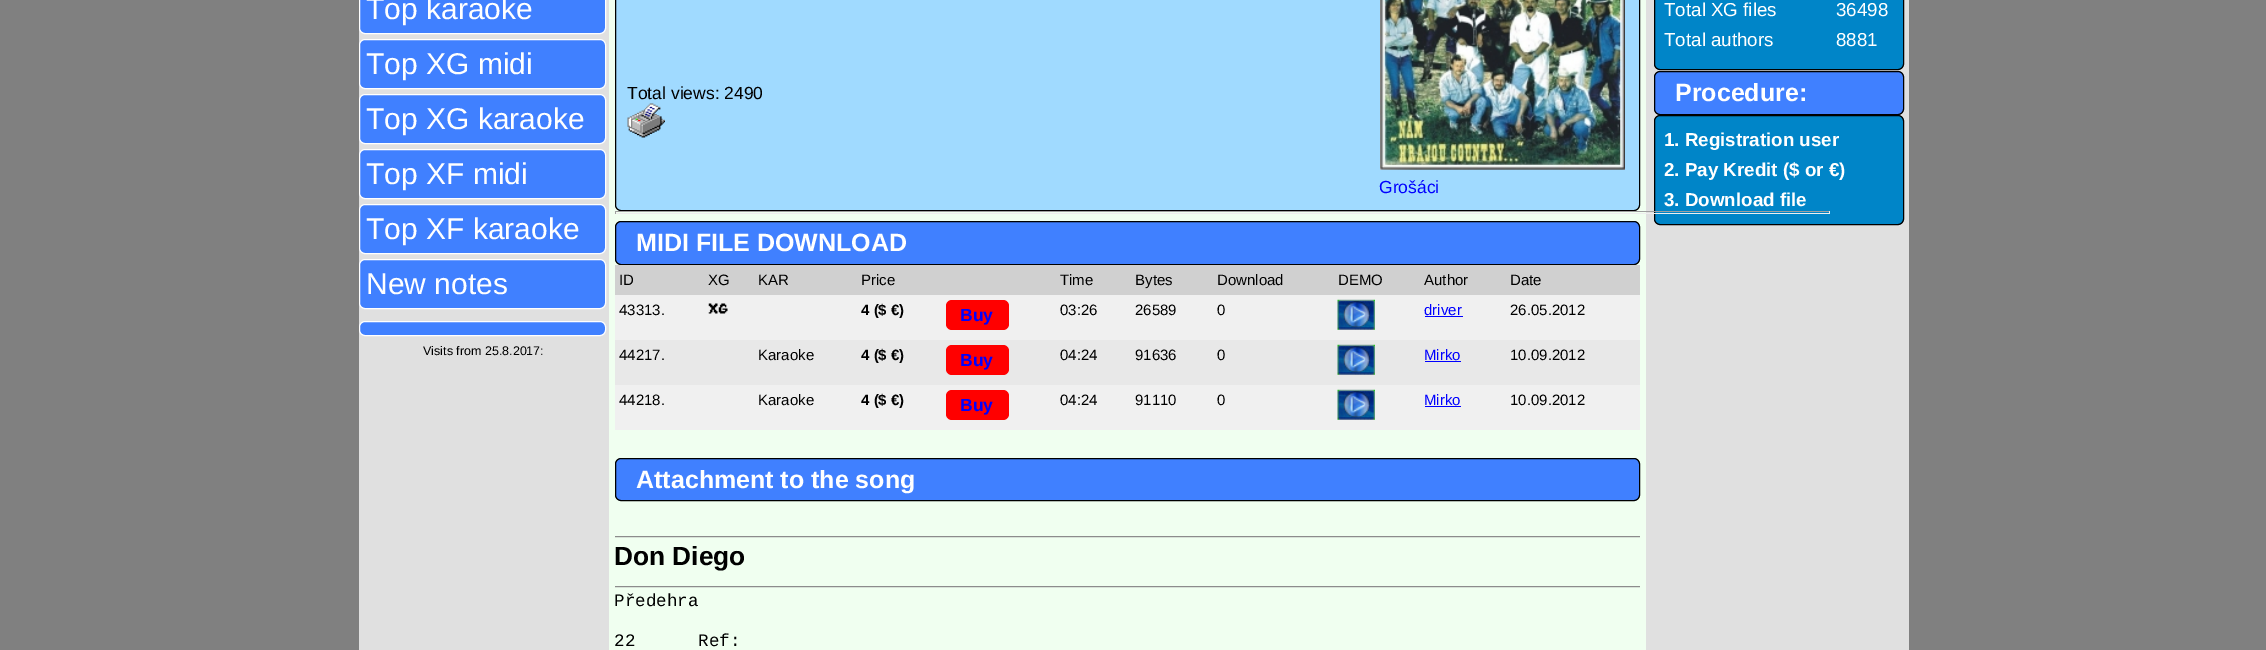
%!PS-Adobe-3.0
%%BoundingBox: 0 0 2266 650
%%LanguageLevel: 3
%%Pages: 1
%%EndComments
%%BeginProlog
/setink { dup -16 bitshift 255 div exch dup -8 bitshift 255 and 255 div exch 255 and 255 div setrgbcolor } def
/usefont { [ exch dup neg 0 0 3 -1 roll 0 0 ] selectfont } def
/rrect { 5 dict begin { /r /h /w /y /x } { exch def } forall
  x r add y moveto x w add y 2 copy h add r arct x w add y h add x 1 index r arct
  x y h add x y r arct x y 2 copy exch w add exch r arct closepath end } def
/drawimage { 5 dict begin { /h /w /y /x /name } { exch def } forall
  gsave x y translate w h scale
  w h 8 [w 0 0 h 0 0] name (r) file false 3 colorimage grestore end } def
%%EndProlog
%%BeginSetup
<< /PageSize [2266 650] >> setpagedevice
%%EndSetup
%%Page: 1 1
0 650 translate 1 -1 scale
4 setmiterlimit
16#808080 setink
0 0 2266 650 rectfill
16#E0E0E0 setink
359 0 1550 650 rectfill
16#4080FF setink
359.5 -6.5 246 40 5.5 rrect gsave fill grestore
16#FFFFFF setink
stroke
/LiberationSans-Regular 30 usefont
366 19 moveto (Top karaoke) show
16#4080FF setink
359.5 39.5 246 49 5.5 rrect gsave fill grestore
16#FFFFFF setink
stroke
366 74 moveto (Top XG midi) show
16#4080FF setink
359.5 94.5 246 49 5.5 rrect gsave fill grestore
16#FFFFFF setink
stroke
366 129 moveto (Top XG karaoke) show
16#4080FF setink
359.5 149.5 246 49 5.5 rrect gsave fill grestore
16#FFFFFF setink
stroke
366 184 moveto (Top XF midi) show
16#4080FF setink
359.5 204.5 246 49 5.5 rrect gsave fill grestore
16#FFFFFF setink
stroke
366 239 moveto (Top XF karaoke) show
16#4080FF setink
359.5 259.5 246 49 5.5 rrect gsave fill grestore
16#FFFFFF setink
stroke
366 294 moveto (New notes) show
16#4080FF setink
359.5 321.5 246 14 5.5 rrect gsave fill grestore
16#FFFFFF setink
stroke
/LiberationSans-Regular 12.5 usefont
16#000000 setink
423 355 moveto (Visits from 25.8.2017:) show
16#F0FFF0 setink
609 0 1037 650 rectfill
16#A0DAFF setink
615.5 -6.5 1024 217 5.5 rrect gsave fill grestore
16#000000 setink
stroke
/LiberationSans-Regular 17.5 usefont
627 99 moveto (Total views: 2490) show
(img1.raw) 627 103 38 35 drawimage
(img2.raw) 1380 0 245 170 drawimage
16#0000FF setink
1379 193 moveto (Grošáci) show
16#0085C8 setink
1654.5 115.5 249 109 5.5 rrect gsave fill grestore
16#000000 setink
stroke
[
    [615 211 1215 1 16#9F9F9F]
    [1829 211 1 3 16#EEEEEE]
    [615 213 1215 1 16#EEEEEE]
    [615 211 1 3 16#9F9F9F]
] { aload pop setink rectfill } forall
16#4080FF setink
615.5 221.5 1024 43 5.5 rrect gsave fill grestore
16#000000 setink
stroke
/LiberationSans-Bold 25 usefont
16#FFFFFF setink
636 251 moveto (MIDI FILE DOWNLOAD) show
16#D0D0D0 setink
615 265 1025 30 rectfill
/LiberationSans-Regular 15 usefont
16#000000 setink
[
    [(ID) 619 285]
    [(XG) 708 285]
    [(KAR) 758 285]
    [(Price) 861 285]
    [(Time) 1060 285]
    [(Bytes) 1135 285]
    [(Download) 1217 285]
    [(DEMO) 1338 285]
    [(Author) 1424 285]
    [(Date) 1510 285]
] { aload pop moveto show } forall
16#F0F0F0 setink
615 295 1025 45 rectfill
16#000000 setink
619 315 moveto (43313.) show
(img3.raw) 708 303 20 11 drawimage
/LiberationSans-Bold 15 usefont
861 315 moveto (4 \($ €\)) show
16#FF0000 setink
946 300 63 30 6 rrect fill
/LiberationSans-Bold 17.5 usefont
16#0000FF setink
960 321 moveto (Buy) show
/LiberationSans-Regular 15 usefont
16#000000 setink
[
    [(03:26) 1060 315]
    [(26589) 1135 315]
    [(0) 1217 315]
] { aload pop moveto show } forall
(img4.raw) 1337 299 38 31 drawimage
16#0000FF setink
1424 315 moveto (driver) show
1425 316 38 1 rectfill
16#000000 setink
1510 315 moveto (26.05.2012) show
16#E8E8E8 setink
615 340 1025 45 rectfill
16#000000 setink
619 360 moveto (44217.) show
758 360 moveto (Karaoke) show
/LiberationSans-Bold 15 usefont
861 360 moveto (4 \($ €\)) show
16#FF0000 setink
946 345 63 30 6 rrect fill
/LiberationSans-Bold 17.5 usefont
16#0000FF setink
960 366 moveto (Buy) show
/LiberationSans-Regular 15 usefont
16#000000 setink
[
    [(04:24) 1060 360]
    [(91636) 1135 360]
    [(0) 1217 360]
] { aload pop moveto show } forall
(img5.raw) 1337 344 38 31 drawimage
16#0000FF setink
1424 360 moveto (Mirko) show
1425 361 36 1 rectfill
16#000000 setink
1510 360 moveto (10.09.2012) show
16#F0F0F0 setink
615 385 1025 45 rectfill
16#000000 setink
619 405 moveto (44218.) show
758 405 moveto (Karaoke) show
/LiberationSans-Bold 15 usefont
861 405 moveto (4 \($ €\)) show
16#FF0000 setink
946 390 63 30 6 rrect fill
/LiberationSans-Bold 17.5 usefont
16#0000FF setink
960 411 moveto (Buy) show
/LiberationSans-Regular 15 usefont
16#000000 setink
[
    [(04:24) 1060 405]
    [(91110) 1135 405]
    [(0) 1217 405]
] { aload pop moveto show } forall
(img4.raw) 1337 389 38 31 drawimage
16#0000FF setink
1424 405 moveto (Mirko) show
1425 406 36 1 rectfill
16#000000 setink
1510 405 moveto (10.09.2012) show
16#4080FF setink
615.5 458.5 1024 42 5.5 rrect gsave fill grestore
16#000000 setink
stroke
/LiberationSans-Bold 25 usefont
16#FFFFFF setink
636 488 moveto (Attachment to the song) show
(img6.raw) 615 536 1025 2 drawimage
/LiberationSans-Bold 26.25 usefont
16#000000 setink
614 565 moveto (Don Diego) show
(img6.raw) 615 586 1025 2 drawimage
/LiberationMono-Regular 17.5 usefont
[
    [(Předehra) 614 606]
    [(22) 614 646]
    [(Ref:) 698 646]
] { aload pop moveto show } forall
16#0085C8 setink
1654.5 -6.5 249 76 5.5 rrect gsave fill grestore
16#000000 setink
stroke
/LiberationSans-Regular 18.75 usefont
16#FFFFFF setink
[
    [(Total XG files) 1664 16]
    [(36498) 1836 16]
    [(Total authors) 1664 46]
    [(8881) 1836 46]
] { aload pop moveto show } forall
16#4080FF setink
1654.5 71.5 249 43 5.5 rrect gsave fill grestore
16#000000 setink
stroke
/LiberationSans-Bold 25 usefont
16#FFFFFF setink
1675 101 moveto (Procedure:) show
/LiberationSans-Bold 18.75 usefont
[
    [(1. Registration user) 1664 146]
    [(2. Pay Kredit \($ or €\)) 1664 176]
    [(3. Download file) 1664 206]
] { aload pop moveto show } forall
showpage
%%EOF
